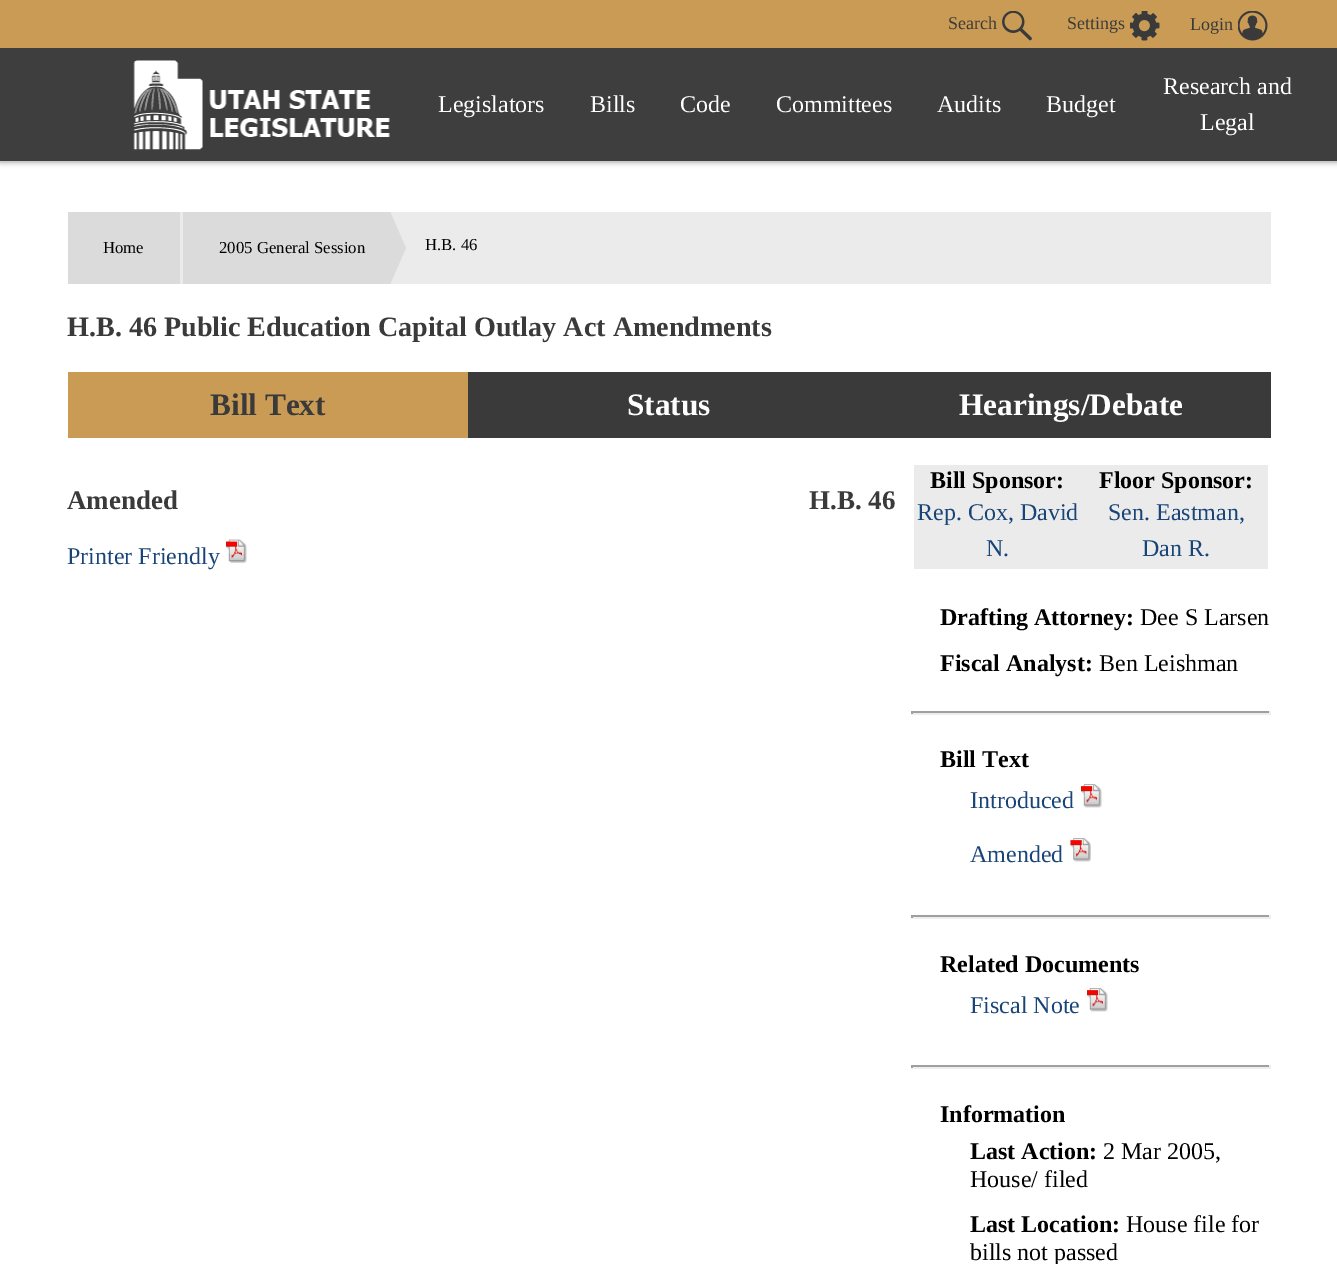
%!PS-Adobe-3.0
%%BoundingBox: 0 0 1337 1264
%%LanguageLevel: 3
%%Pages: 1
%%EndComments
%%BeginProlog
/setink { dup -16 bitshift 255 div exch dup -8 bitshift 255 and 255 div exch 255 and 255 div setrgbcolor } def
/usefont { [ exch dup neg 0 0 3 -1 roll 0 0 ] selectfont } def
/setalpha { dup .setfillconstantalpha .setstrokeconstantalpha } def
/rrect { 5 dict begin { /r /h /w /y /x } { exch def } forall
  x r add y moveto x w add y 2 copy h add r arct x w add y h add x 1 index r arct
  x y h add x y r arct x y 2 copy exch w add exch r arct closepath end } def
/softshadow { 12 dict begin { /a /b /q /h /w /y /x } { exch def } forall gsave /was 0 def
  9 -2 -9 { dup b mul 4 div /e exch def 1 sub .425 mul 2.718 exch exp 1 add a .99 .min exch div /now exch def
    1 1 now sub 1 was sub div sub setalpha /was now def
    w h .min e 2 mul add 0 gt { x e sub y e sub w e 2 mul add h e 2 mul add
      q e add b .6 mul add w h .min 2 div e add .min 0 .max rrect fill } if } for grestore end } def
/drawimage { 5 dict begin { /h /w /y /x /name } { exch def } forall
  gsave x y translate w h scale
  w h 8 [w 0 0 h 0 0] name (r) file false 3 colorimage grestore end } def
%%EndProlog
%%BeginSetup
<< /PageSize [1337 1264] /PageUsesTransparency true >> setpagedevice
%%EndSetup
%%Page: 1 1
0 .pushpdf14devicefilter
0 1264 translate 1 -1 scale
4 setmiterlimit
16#FFFFFF setink
0 0 1337 1264 rectfill
gsave
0 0 moveto 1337 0 lineto 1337 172 lineto 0 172 lineto closepath 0 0 moveto 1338 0 lineto 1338 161 lineto 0 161 lineto closepath eoclip newpath
16#000000 setink
0 2 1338 160 0 3 0.4 softshadow
grestore
16#CA9B54 setink
0 0 1337 48 rectfill
/LiberationSerif-Regular 18 usefont
16#3A3A3A setink
948 29 moveto (Search) show
(img1.raw) 1002 11 30 30 drawimage
1067 29 moveto (Settings) show
(img2.raw) 1130 11 30 30 drawimage
1190 30 moveto (Login) show
(img3.raw) 1238 11 30 30 drawimage
0.98 setalpha
0 48 1337 113 rectfill
1 setalpha
(img4.raw) 133 60 257 90 drawimage
/LiberationSerif-Regular 24 usefont
16#FFFFFF setink
[
    [(Legislators) 438 112]
    [(Bills) 590 112]
    [(Code) 680 112]
    [(Committees) 776 112]
    [(Audits) 937 112]
    [(Budget) 1046 112]
    [(Research and) 1163 94]
    [(Legal) 1200 130]
] { aload pop moveto show } forall
[
    [390 212 881 72 16#EBEBEB]
    [68 212 112 72 16#DBDBDB]
    [180 212 3 72 16#EBEBEB]
] { aload pop setink rectfill } forall
/LiberationSerif-Regular 16.75 usefont
16#000000 setink
103 253 moveto (Home) show
gsave
342 212 66 72 rectclip
16#DBDBDB setink
342 102 moveto 406 248 lineto 342 393 lineto closepath fill
grestore
16#DBDBDB setink
183 212 159 72 rectfill
16#000000 setink
219 253 moveto (2005 General Session) show
425 250 moveto (H.B. 46) show
/LiberationSerif-Bold 28.1 usefont
16#3A3A3A setink
67 336 moveto (H.B. 46 Public Education Capital Outlay Act Amendments) show
16#CA9B54 setink
68 372 400 66 rectfill
/LiberationSerif-Bold 31.25 usefont
16#3A3A3A setink
210 415 moveto (Bill Text) show
468 372 803 66 rectfill
16#FFFFFF setink
627 415 moveto (Status) show
959 415 moveto (Hearings/Debate) show
/LiberationSerif-Bold 27 usefont
16#3A3A3A setink
67 509 moveto (Amended) show
/LiberationSerif-Regular 24 usefont
16#184477 setink
67 564 moveto (Printer Friendly) show
(img5.raw) 226 539 21 24 drawimage
/LiberationSerif-Bold 27 usefont
16#3A3A3A setink
809 509 moveto (H.B. 46) show
16#EBEBEB setink
914 465 354 104 rectfill
/LiberationSerif-Bold 24 usefont
16#000000 setink
930 488 moveto (Bill Sponsor:) show
/LiberationSerif-Regular 24 usefont
16#184477 setink
917 520 moveto (Rep. Cox, David) show
986 556 moveto (N.) show
/LiberationSerif-Bold 24 usefont
16#000000 setink
1099 488 moveto (Floor Sponsor:) show
/LiberationSerif-Regular 24 usefont
16#184477 setink
1108 520 moveto (Sen. Eastman,) show
1142 556 moveto (Dan R.) show
/LiberationSerif-Bold 24 usefont
16#000000 setink
940 625 moveto (Drafting Attorney:) show
/LiberationSerif-Regular 24 usefont
1140 625 moveto (Dee S Larsen) show
/LiberationSerif-Bold 24 usefont
940 671 moveto (Fiscal Analyst:) show
/LiberationSerif-Regular 24 usefont
1099 671 moveto (Ben Leishman) show
[
    [911 711 360 2 16#9F9F9F]
    [1269 711 2 3 16#EEEEEE]
    [911 713 360 2 16#EEEEEE]
    [911 711 2 3 16#9F9F9F]
] { aload pop setink rectfill } forall
/LiberationSerif-Bold 24 usefont
16#000000 setink
940 767 moveto (Bill Text) show
/LiberationSerif-Regular 24 usefont
16#184477 setink
970 808 moveto (Introduced) show
(img6.raw) 1081 784 21 24 drawimage
970 862 moveto (Amended) show
(img7.raw) 1070 838 21 24 drawimage
[
    [911 915 360 2 16#9F9F9F]
    [1269 915 2 3 16#EEEEEE]
    [911 917 360 2 16#EEEEEE]
    [911 915 2 3 16#9F9F9F]
] { aload pop setink rectfill } forall
/LiberationSerif-Bold 24 usefont
16#000000 setink
940 972 moveto (Related Documents) show
/LiberationSerif-Regular 24 usefont
16#184477 setink
970 1013 moveto (Fiscal Note) show
(img6.raw) 1087 988 21 24 drawimage
[
    [911 1065 360 2 16#9F9F9F]
    [1269 1065 2 3 16#EEEEEE]
    [911 1067 360 2 16#EEEEEE]
    [911 1065 2 3 16#9F9F9F]
] { aload pop setink rectfill } forall
/LiberationSerif-Bold 24 usefont
16#000000 setink
940 1122 moveto (Information) show
970 1159 moveto (Last Action:) show
/LiberationSerif-Regular 24 usefont
1103 1159 moveto (2 Mar 2005,) show
970 1187 moveto (House/ filed) show
/LiberationSerif-Bold 24 usefont
970 1232 moveto (Last Location:) show
/LiberationSerif-Regular 24 usefont
1126 1232 moveto (House file for) show
970 1260 moveto (bills not passed) show
.poppdf14devicefilter showpage
%%EOF
